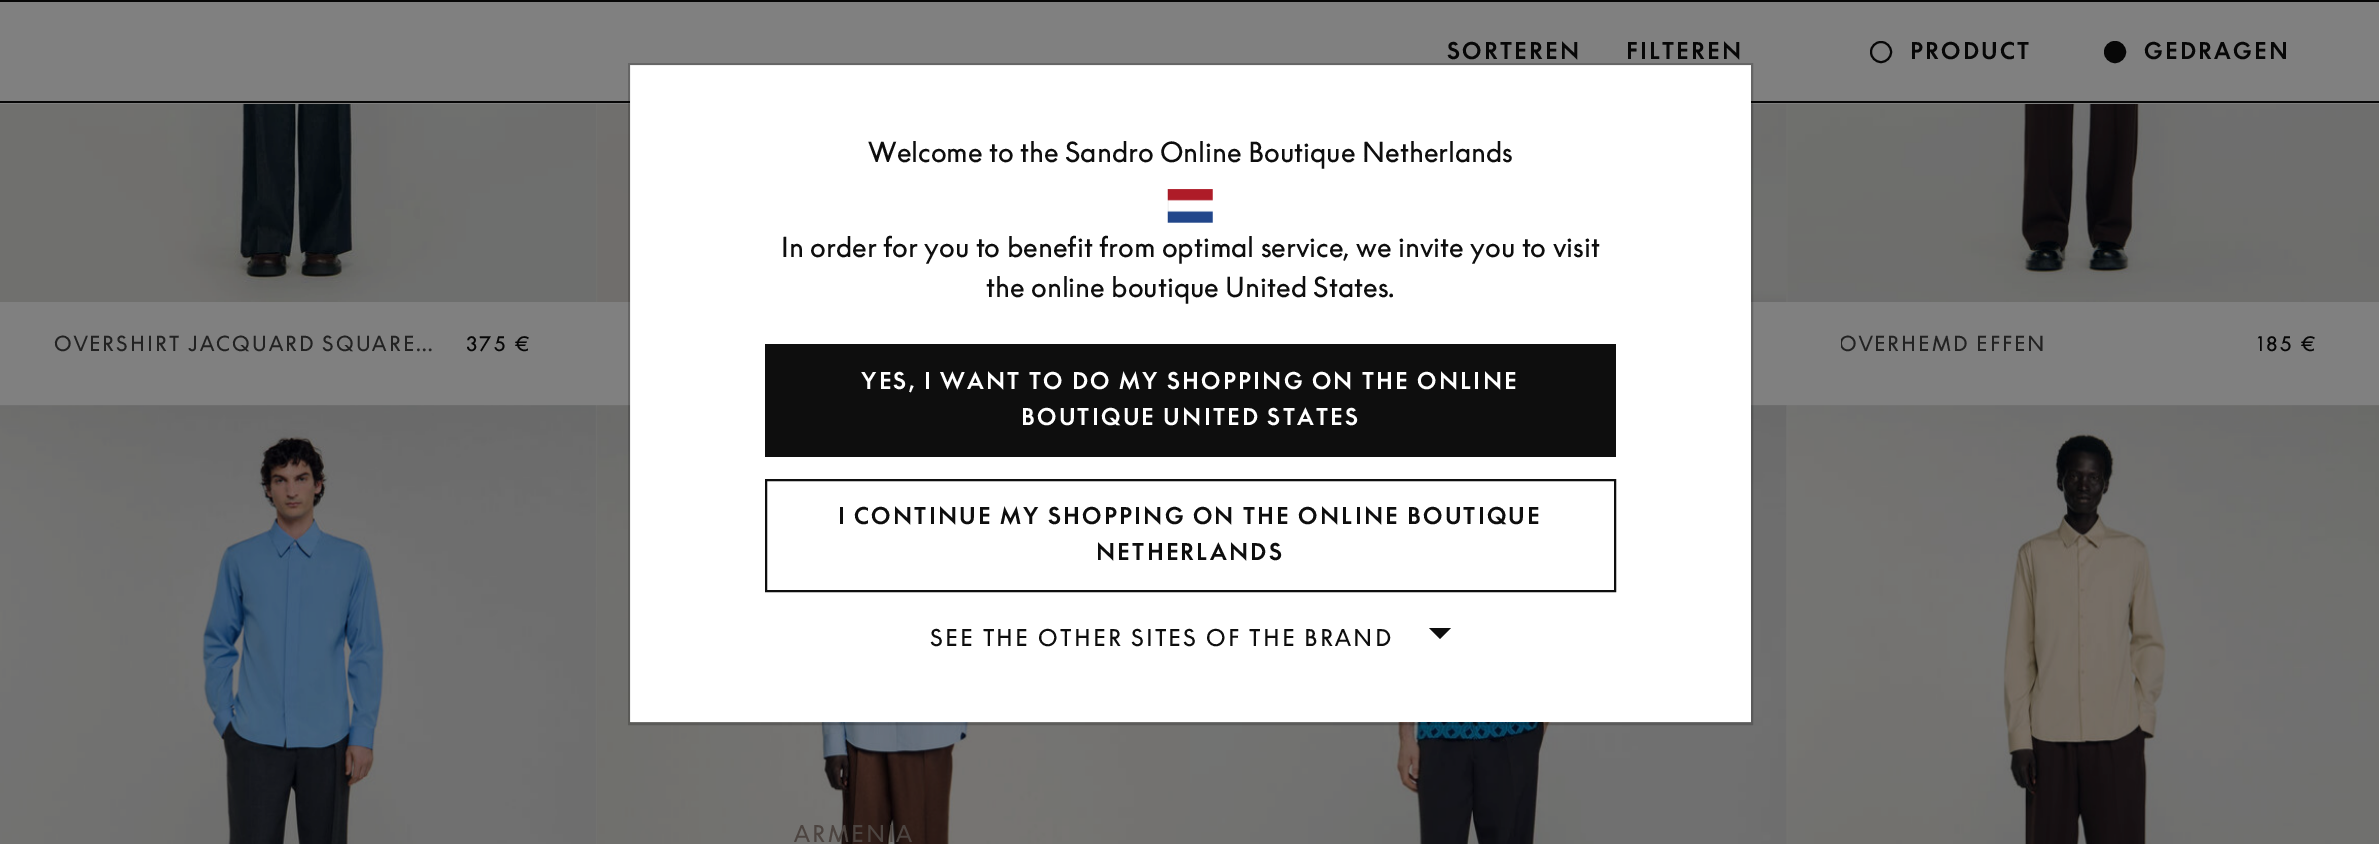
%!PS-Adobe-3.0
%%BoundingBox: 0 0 2379 844
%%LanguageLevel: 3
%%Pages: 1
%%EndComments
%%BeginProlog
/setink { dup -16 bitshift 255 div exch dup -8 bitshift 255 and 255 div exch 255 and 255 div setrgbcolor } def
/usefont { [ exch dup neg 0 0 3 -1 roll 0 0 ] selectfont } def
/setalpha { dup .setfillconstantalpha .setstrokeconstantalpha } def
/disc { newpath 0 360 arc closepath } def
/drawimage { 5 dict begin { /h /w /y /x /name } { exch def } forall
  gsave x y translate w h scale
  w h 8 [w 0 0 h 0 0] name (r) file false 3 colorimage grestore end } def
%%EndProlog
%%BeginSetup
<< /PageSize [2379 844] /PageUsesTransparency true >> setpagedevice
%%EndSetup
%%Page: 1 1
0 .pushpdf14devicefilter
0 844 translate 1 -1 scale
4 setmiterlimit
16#808080 setink
0 0 2379 844 rectfill
16#070707 setink
0 0 2379 2 rectfill
0 101 2379 2 rectfill
/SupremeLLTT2-Bold 22.5 usefont
1447 59 moveto 2.25 0 (SORTEREN) ashow
1626 59 moveto 2.25 0 (FILTEREN) ashow
2 setlinewidth
1881 52 10 disc stroke
/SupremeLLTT-Bold 22.5 usefont
1910 59 moveto 2.25 0 (PRODUCT) ashow
2115 52 10 disc gsave fill grestore
stroke
2144 59 moveto 2.25 0 (GEDRAGEN) ashow
(img3.raw) 0 104 597 198 drawimage
(img1.raw) 596 104 34 198 drawimage
(img2.raw) 1751 104 36 198 drawimage
/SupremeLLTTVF-Regular 20.25 usefont
16#222222 setink
54 351 moveto 2 0 (OVERSHIRT JACQUARD SQUARE…) ashow
16#070707 setink
466 351 moveto 2 0 (375 €) ashow
(img4.raw) 1786 104 593 198 drawimage
gsave
1841 329 207 31 rectclip
16#222222 setink
1839 351 moveto 2 0 (OVERHEMD EFFEN) ashow
grestore
2257 351 moveto 2 0 (185 €) ashow
(img5.raw) 0 405 596 439 drawimage
(img6.raw) 596 405 594 439 drawimage
(img7.raw) 1190 405 597 439 drawimage
(img8.raw) 1786 405 593 439 drawimage
16#FFFFFF setink
630 65 1121 657 rectfill
0.2 setalpha
16#000000 setink
629 64 1123 660 rectstroke
/SupremeLLTTVF-Regular 27 usefont
1 setalpha
16#0E0E0E setink
868 162 moveto (Welcome to the Sandro Online Boutique Netherlands) show
(img9.raw) 1167 189 46 34 drawimage
781 257 moveto (In order for you to benefit from optimal service, we invite you to visit) show
986 297 moveto (the online boutique United States.) show
765 344 851 113 rectfill
/SupremeLLTT2-Bold 22.5 usefont
16#FFFFFF setink
861 389 moveto 2.25 0 (YES, I WANT TO DO MY SHOPPING ON THE ONLINE) ashow
1021 425 moveto 2.25 0 (BOUTIQUE UNITED STATES) ashow
16#0E0E0E setink
766 480 849 111 rectstroke
838 524 moveto 2.25 0 (I CONTINUE MY SHOPPING ON THE ONLINE BOUTIQUE) ashow
1096 560 moveto 2.25 0 (NETHERLANDS) ashow
/SupremeLLTTVF-Regular 22.5 usefont
930 646 moveto 2.25 0 (SEE THE OTHER SITES OF THE BRAND) ashow
1429 628 moveto 1451 628 lineto 1440 639 lineto closepath fill
16#4C4440 setink
794 842 moveto 2.25 0 (ARMENIA) ashow
.poppdf14devicefilter showpage
%%EOF
